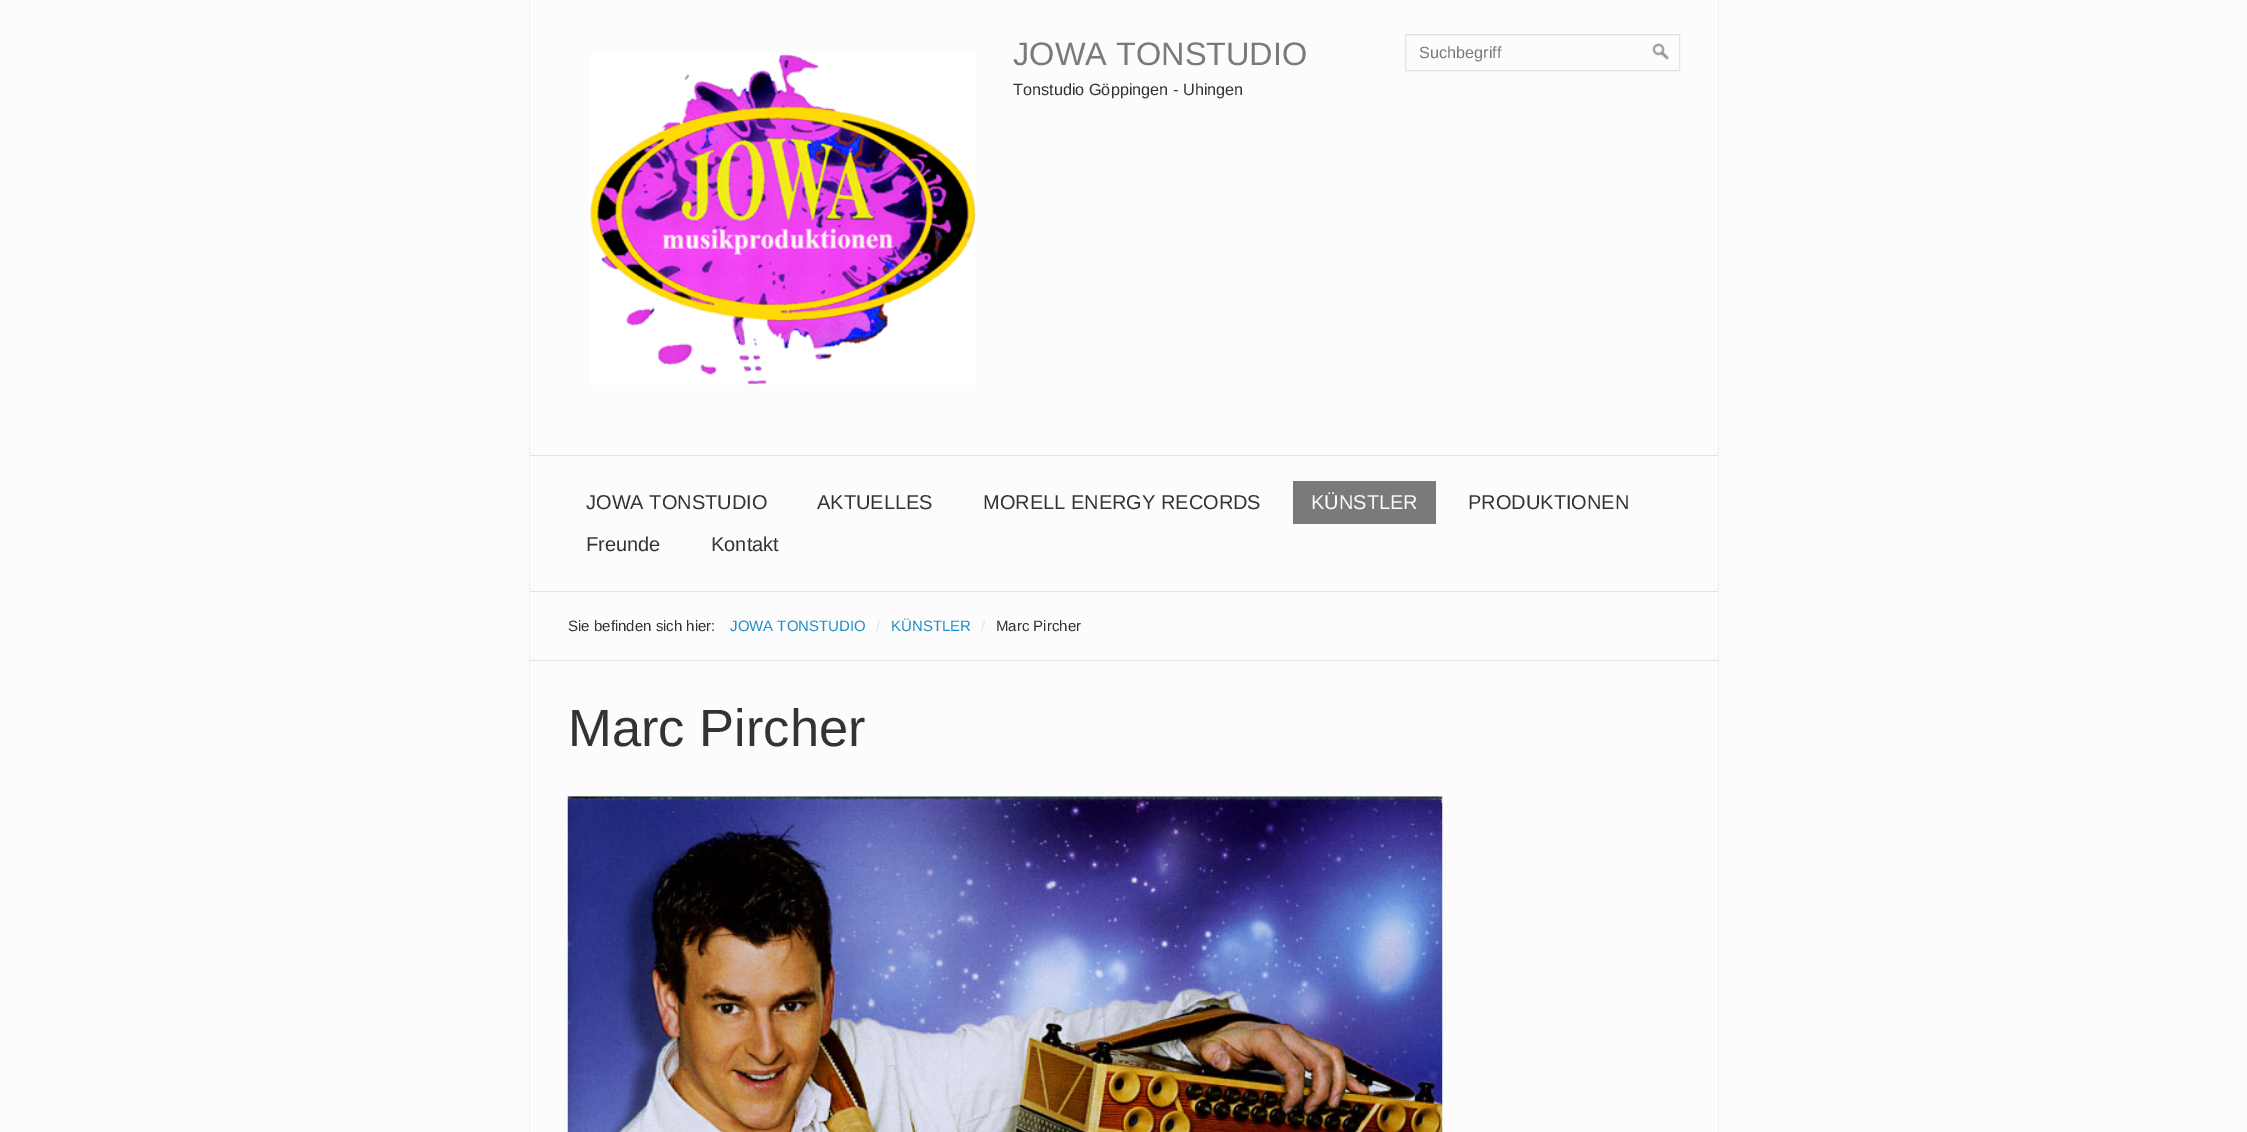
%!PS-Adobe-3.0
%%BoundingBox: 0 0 2247 1132
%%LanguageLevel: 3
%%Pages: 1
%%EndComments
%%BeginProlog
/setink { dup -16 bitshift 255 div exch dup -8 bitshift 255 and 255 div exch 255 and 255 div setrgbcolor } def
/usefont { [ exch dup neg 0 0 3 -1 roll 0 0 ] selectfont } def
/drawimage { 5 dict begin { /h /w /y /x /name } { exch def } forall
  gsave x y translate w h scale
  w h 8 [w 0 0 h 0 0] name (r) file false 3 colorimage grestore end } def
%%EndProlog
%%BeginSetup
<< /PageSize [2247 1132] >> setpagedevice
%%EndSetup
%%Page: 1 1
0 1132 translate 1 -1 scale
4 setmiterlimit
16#FCFCFC setink
0 0 2247 1132 rectfill
[
    [1718 0 1 1132 16#EFEFEF]
    [529 0 1 1132 16#EFEFEF]
    [530 455 1188 1 16#E3E3E3]
] { aload pop setink rectfill } forall
(img1.raw) 590 54 386 331 drawimage
/LiberationSans-Regular 32.5 usefont
16#7A7A7A setink
1013 65 moveto (JOWA TONSTUDIO) show
/LiberationSans-Regular 16.25 usefont
16#333333 setink
1013 95 moveto (Tonstudio Göppingen - Uhingen) show
16#E3E3E3 setink
1405.5 34.5 274 36 rectstroke
16#7A7A7A setink
1419 58 moveto (Suchbegriff) show
(img2.raw) 1652 43 17 17 drawimage
16#E3E3E3 setink
530 591 1188 1 rectfill
/LiberationSans-Regular 20 usefont
16#333333 setink
[
    [(JOWA TONSTUDIO) 586 509]
    [(AKTUELLES) 817 509]
    [(MORELL ENERGY RECORDS) 983 509]
] { aload pop moveto show } forall
16#7A7A7A setink
1293 481 143 43 rectfill
16#FCFCFC setink
1311 509 moveto (KÜNSTLER) show
16#333333 setink
[
    [(PRODUKTIONEN) 1468 509]
    [(Freunde) 586 551]
    [(Kontakt) 711 551]
] { aload pop moveto show } forall
16#E3E3E3 setink
530 660 1188 1 rectfill
/LiberationSans-Regular 15 usefont
16#333333 setink
568 631 moveto (Sie befinden sich hier:) show
16#1E8FC7 setink
730 631 moveto (JOWA TONSTUDIO) show
16#E3E3E3 setink
876 631 moveto (/) show
16#1E8FC7 setink
891 631 moveto (KÜNSTLER) show
16#E3E3E3 setink
981 631 moveto (/) show
16#333333 setink
996 631 moveto (Marc Pircher) show
/LiberationSans-Regular 52.5 usefont
568 746 moveto (Marc Pircher) show
(img3.raw) 567 796 876 336 drawimage
showpage
%%EOF
